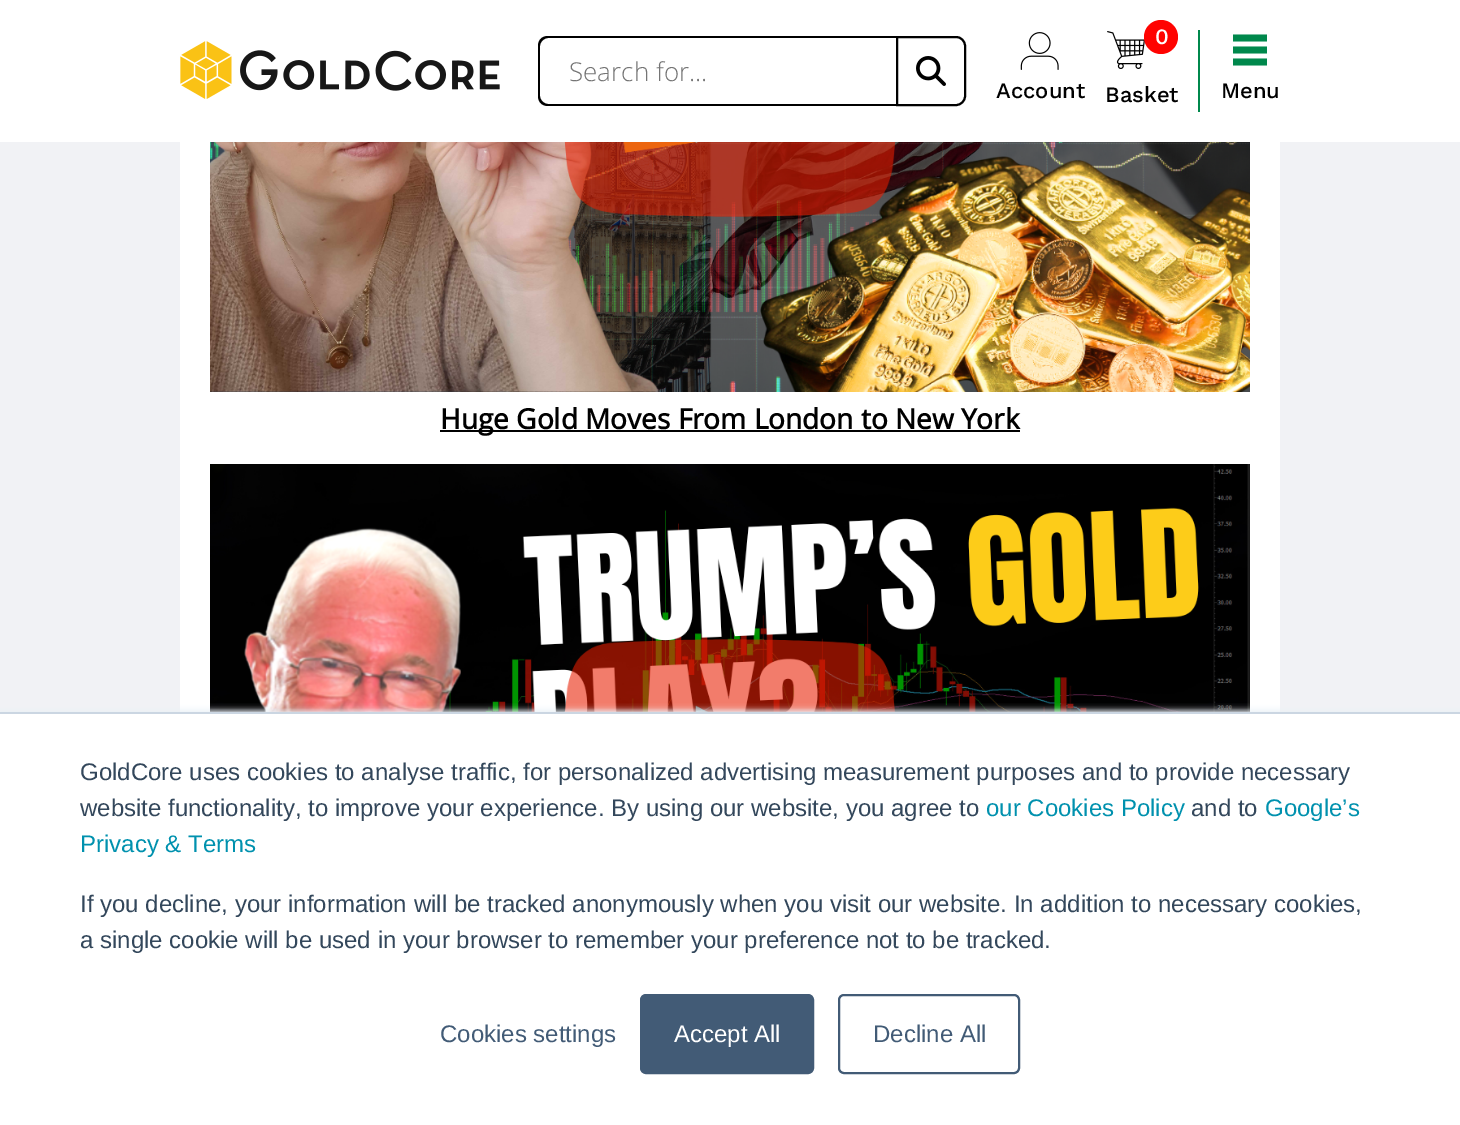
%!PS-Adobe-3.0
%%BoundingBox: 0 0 1460 1125
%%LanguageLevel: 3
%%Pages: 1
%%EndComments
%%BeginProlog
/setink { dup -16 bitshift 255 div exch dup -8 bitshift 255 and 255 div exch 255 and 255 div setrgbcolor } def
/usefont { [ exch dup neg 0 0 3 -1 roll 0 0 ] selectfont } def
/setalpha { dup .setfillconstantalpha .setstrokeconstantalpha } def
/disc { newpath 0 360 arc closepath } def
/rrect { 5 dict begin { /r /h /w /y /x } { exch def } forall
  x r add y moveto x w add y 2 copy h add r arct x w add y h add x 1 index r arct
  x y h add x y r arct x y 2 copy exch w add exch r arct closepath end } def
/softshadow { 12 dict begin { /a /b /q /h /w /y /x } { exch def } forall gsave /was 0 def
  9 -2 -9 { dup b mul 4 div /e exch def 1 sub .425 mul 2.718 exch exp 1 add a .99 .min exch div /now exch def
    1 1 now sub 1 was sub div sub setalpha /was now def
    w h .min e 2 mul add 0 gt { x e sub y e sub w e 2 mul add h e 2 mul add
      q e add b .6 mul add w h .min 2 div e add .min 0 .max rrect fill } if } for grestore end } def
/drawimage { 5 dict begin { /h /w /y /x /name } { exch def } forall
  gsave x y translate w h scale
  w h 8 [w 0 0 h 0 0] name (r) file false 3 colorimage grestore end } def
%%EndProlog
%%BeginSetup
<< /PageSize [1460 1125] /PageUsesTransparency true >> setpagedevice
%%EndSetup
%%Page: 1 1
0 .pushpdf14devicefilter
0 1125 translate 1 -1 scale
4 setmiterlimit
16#F1F2F5 setink
0 0 1460 1125 rectfill
16#FFFFFF setink
0 0 1460 142 rectfill
(img1.raw) 180 41 320 58 drawimage
16#000000 setink
548 36 moveto 896 36 lineto 896 106 lineto 548 106 lineto 542 106 538 102 538 96 curveto 538 46 lineto 538 40 542 36 548 36 curveto closepath 548 38 moveto 896 38 lineto 896 104 lineto 548 104 lineto 544 104 540 100 540 96 curveto 540 46 lineto 540 42 544 38 548 38 curveto closepath eofill
/OpenSans-Light 26 usefont
16#757575 setink
569 81 moveto (Search for...) show
16#000000 setink
2 setlinewidth
897 37 moveto 956 37 lineto 961 37 965 41 965 46 curveto 965 96 lineto 965 101 961 105 956 105 curveto 897 105 lineto closepath stroke
(img2.raw) 916 56 30 30 drawimage
(img3.raw) 1020 32 39 38 drawimage
/WorkSans-Medium 22 usefont
996 98 moveto (Account) show
(img4.raw) 1107 31 38 38 drawimage
16#FF0301 setink
1161 37 17 disc fill
16#FFFFFF setink
1155 44 moveto (0) show
16#000000 setink
1105 102 moveto (Basket) show
16#00884C setink
1198 30 2 82 rectfill
6.7 setlinewidth
1233 62 moveto 1267 62 lineto 1233 50 moveto 1267 50 lineto 1233 38 moveto 1267 38 lineto stroke
16#000000 setink
1221 98 moveto (Menu) show
16#FFFFFF setink
180 142 1100 570 rectfill
(img5.raw) 210 142 1040 250 drawimage
16#000000 setink
440 430 580 2 rectfill
/OpenSans-Bold 28 usefont
440 429 moveto (Huge Gold Moves From London to New York) show
(img6.raw) 210 464 1040 248 drawimage
16#EAF0F6 setink
0 710 1460 414 0 3 1 softshadow
16#FFFFFF setink
0 714 1460 411 rectfill
16#CBD6E2 setink
0 712 1460 2 rectfill
/LiberationSans-Regular 24 usefont
16#33475B setink
80 780 moveto (GoldCore uses cookies to analyse traffic, for personalized advertising measurement purposes and to provide necessary) show
80 816 moveto (website functionality, to improve your experience. By using our website, you agree to) show
16#0091AE setink
986 816 moveto (our Cookies Policy) show
16#33475B setink
1191 816 moveto (and to) show
16#0091AE setink
1265 816 moveto (Google’s) show
80 852 moveto (Privacy & Terms) show
16#33475B setink
80 912 moveto (If you decline, your information will be tracked anonymously when you visit our website. In addition to necessary cookies,) show
80 948 moveto (a single cookie will be used in your browser to remember your preference not to be tracked.) show
16#425B76 setink
440 1042 moveto (Cookies settings) show
641 995 172 78 5 rrect gsave fill grestore
2 setlinewidth
stroke
16#FFFFFF setink
674 1042 moveto (Accept All) show
16#425B76 setink
839 995 180 78 5 rrect stroke
873 1042 moveto (Decline All) show
.poppdf14devicefilter showpage
%%EOF
